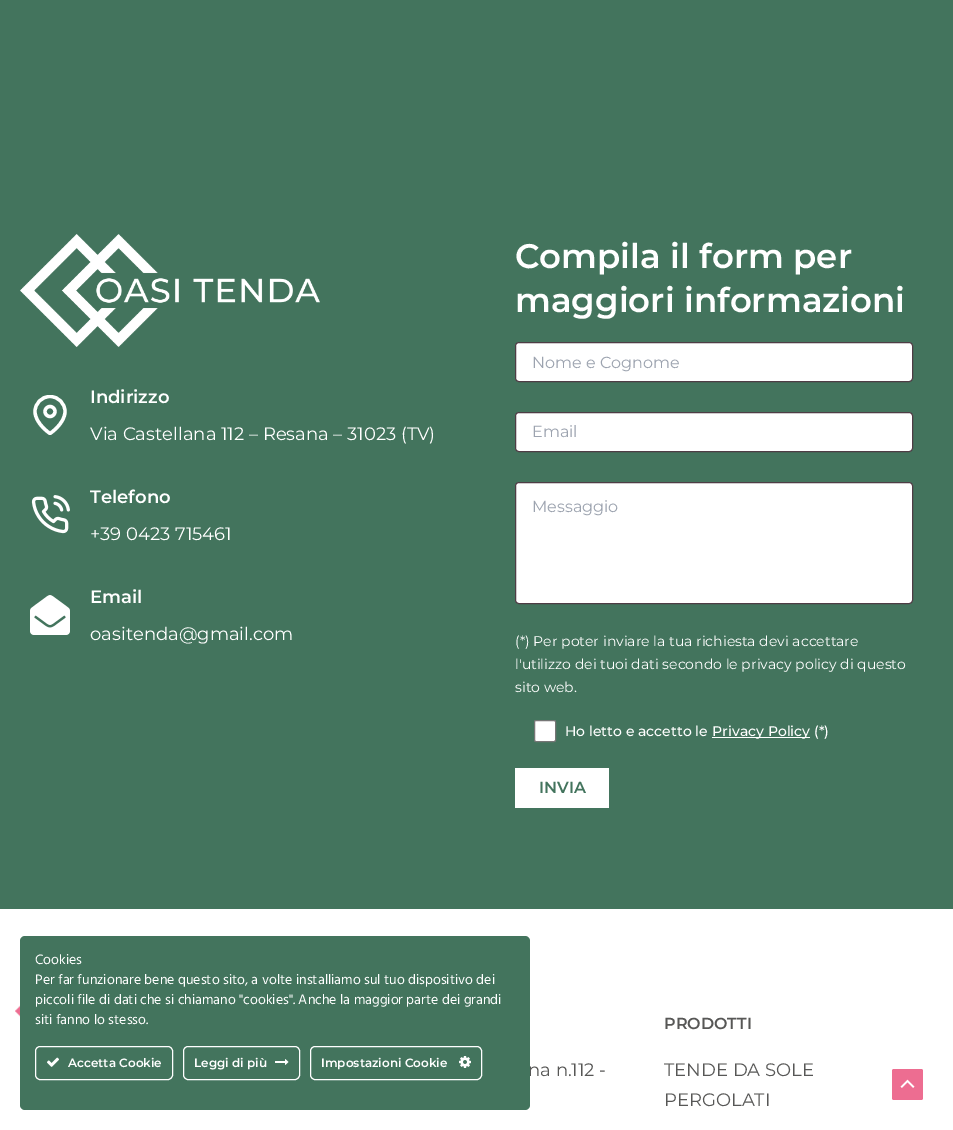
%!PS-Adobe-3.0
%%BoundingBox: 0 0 953 1130
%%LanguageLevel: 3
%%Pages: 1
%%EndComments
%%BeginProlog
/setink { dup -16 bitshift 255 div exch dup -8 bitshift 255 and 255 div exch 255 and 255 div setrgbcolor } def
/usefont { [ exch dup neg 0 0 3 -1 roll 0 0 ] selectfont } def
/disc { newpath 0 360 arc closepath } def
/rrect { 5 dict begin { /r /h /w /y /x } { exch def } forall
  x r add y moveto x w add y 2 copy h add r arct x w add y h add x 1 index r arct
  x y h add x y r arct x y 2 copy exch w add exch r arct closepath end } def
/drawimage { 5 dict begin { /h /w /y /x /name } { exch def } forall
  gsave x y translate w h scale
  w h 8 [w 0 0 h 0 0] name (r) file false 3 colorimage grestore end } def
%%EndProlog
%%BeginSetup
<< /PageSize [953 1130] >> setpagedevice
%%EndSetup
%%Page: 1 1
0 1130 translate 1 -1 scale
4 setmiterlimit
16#43745D setink
0 0 953 1130 rectfill
(img1.raw) 20 234 300 113 drawimage
gsave
30 395 40 40 rectclip
16#FFFFFF setink
3.3 setlinewidth
1 setlinecap
1 setlinejoin
65 411.5 moveto 65 423.5 50 433.5 50 433.5 curveto 50 433.5 35 423.5 35 411.5 curveto 35 403.5 41.5 396.5 50 396.5 curveto 58.5 396.5 65 403.5 65 411.5 curveto closepath stroke
grestore
16#FFFFFF setink
3.3 setlinewidth
50 411.5 5 disc stroke
/Montserrat-SemiBold 18 usefont
90 403 moveto (Indirizzo) show
/Montserrat-Regular 18 usefont
90 440 moveto (Via Castellana 112 – Resana – 31023 \(TV\)) show
(img2.raw) 31 495 39 39 drawimage
/Montserrat-SemiBold 18 usefont
90 503 moveto (Telefono) show
/Montserrat-Regular 18 usefont
90 540 moveto (+39 0423 715461) show
(img3.raw) 30 595 40 40 drawimage
/Montserrat-SemiBold 18 usefont
90 603 moveto (Email) show
/Montserrat-Regular 18 usefont
90 640 moveto (oasitenda@gmail.com) show
/Montserrat-SemiBold 34 usefont
515 268 moveto (Compila il form per) show
515 312 moveto (maggiori informazioni) show
515.5 342.5 397 39 3.5 rrect gsave fill grestore
16#4E3D45 setink
1 setlinewidth
stroke
/Montserrat-Regular 16 usefont
16#9CA3AF setink
532 368 moveto (Nome e Cognome) show
16#FFFFFF setink
515.5 412.5 397 39 3.5 rrect gsave fill grestore
16#4E3D45 setink
stroke
16#9CA3AF setink
532 437 moveto (Email) show
16#FFFFFF setink
515.5 482.5 397 121 3.5 rrect gsave fill grestore
16#4E3D45 setink
stroke
16#9CA3AF setink
532 512 moveto (Messaggio) show
/Montserrat-Regular 14 usefont
16#FFFFFF setink
[
    [(\(*\) Per poter inviare la tua richiesta devi accettare) 515 646]
    [(l'utilizzo dei tuoi dati secondo le privacy policy di questo) 515 669]
    [(sito web.) 515 692]
] { aload pop moveto show } forall
534.5 720.5 21 21 1.5 rrect gsave fill grestore
16#767676 setink
stroke
/Montserrat-Medium 14 usefont
16#FFFFFF setink
565 736 moveto (Ho letto e accetto le) show
712 737 98 1 rectfill
712 736 moveto (Privacy Policy \(*\)) show
515 768 94 40 rectfill
/Montserrat-SemiBold 16 usefont
16#43745D setink
539 793 moveto (INVIA) show
16#FFFFFF setink
0 909 953 221 rectfill
(img4.raw) 15 1005 5 12 drawimage
/Montserrat-Regular 18 usefont
16#575756 setink
528 1076 moveto (na n.112 -) show
/Montserrat-SemiBold 16 usefont
664 1029 moveto (PRODOTTI) show
/Montserrat-Regular 18 usefont
664 1076 moveto (TENDE DA SOLE) show
664 1106 moveto (PERGOLATI) show
16#43745D setink
20 936 510 174 5 rrect fill
/Hind-Regular 14 usefont
16#FFFFFF setink
[
    [(Cookies) 35 964]
    [(Per far funzionare bene questo sito, a volte installiamo sul tuo dispositivo dei) 35 984]
    [(piccoli file di dati che si chiamano "cookies". Anche la maggior parte dei grandi) 35 1004]
    [(siti fanno lo stesso.) 35 1024]
] { aload pop moveto show } forall
35.5 1046.5 137 33 4.5 rrect stroke
(img5.raw) 47 1057 12 10 drawimage
/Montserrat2-SemiBold 12 usefont
68 1067 moveto (Accetta Cookie) show
183.5 1046.5 116 33 4.5 rrect stroke
194 1067 moveto (Leggi di più) show
(img6.raw) 275 1059 14 6 drawimage
310.5 1046.5 171 33 4.5 rrect stroke
321 1067 moveto (Impostazioni Cookie) show
(img7.raw) 459 1056 12 12 drawimage
16#ED6D91 setink
892 1069 31 31 2 rrect fill
(img8.raw) 900 1079 15 9 drawimage
showpage
%%EOF
